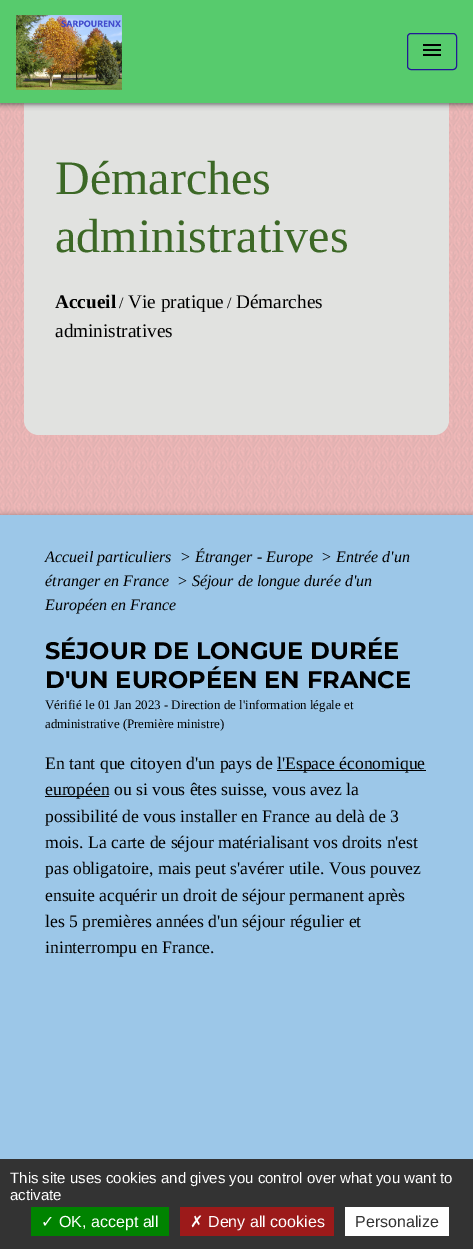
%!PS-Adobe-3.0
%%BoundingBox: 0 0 473 1249
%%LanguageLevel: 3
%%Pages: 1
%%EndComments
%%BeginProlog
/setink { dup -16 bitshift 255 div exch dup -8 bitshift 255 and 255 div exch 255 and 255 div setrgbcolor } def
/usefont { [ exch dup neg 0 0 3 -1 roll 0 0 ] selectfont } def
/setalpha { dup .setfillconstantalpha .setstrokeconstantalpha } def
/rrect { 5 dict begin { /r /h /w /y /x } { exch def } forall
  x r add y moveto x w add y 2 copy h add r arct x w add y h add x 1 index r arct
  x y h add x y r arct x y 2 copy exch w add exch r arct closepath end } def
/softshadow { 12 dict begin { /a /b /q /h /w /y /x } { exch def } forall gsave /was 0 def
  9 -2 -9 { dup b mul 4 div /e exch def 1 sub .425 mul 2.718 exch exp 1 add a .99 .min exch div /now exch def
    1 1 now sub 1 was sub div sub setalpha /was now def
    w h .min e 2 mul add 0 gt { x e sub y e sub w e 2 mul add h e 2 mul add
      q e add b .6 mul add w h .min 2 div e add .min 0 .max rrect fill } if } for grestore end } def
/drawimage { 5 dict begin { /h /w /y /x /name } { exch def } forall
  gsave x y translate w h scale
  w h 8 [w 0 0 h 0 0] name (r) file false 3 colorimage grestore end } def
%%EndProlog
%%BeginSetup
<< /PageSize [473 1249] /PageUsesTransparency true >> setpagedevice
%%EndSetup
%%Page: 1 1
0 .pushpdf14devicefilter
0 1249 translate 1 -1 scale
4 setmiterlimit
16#F4BBBB setink
0 0 473 1249 rectfill
(img1.raw) 0 103 473 412 drawimage
16#E1E2E0 setink
24 60 425 375 15 rrect fill
16#535353 setink
0 1 473 103 0 3 1 softshadow
16#57CB6D setink
0 0 473 103 rectfill
(img2.raw) 16 15 106 75 drawimage
16#231896 setink
407.5 33.5 49 36 3.5 rrect stroke
(img3.raw) 423 44 18 12 drawimage
/LiberationSerif-Regular 48 usefont
16#3C6826 setink
55 194 moveto (Démarches) show
55 252 moveto (administratives) show
/LiberationSerif-Bold 19.25 usefont
16#000000 setink
55 308 moveto (Accueil) show
/LiberationSerif-Regular 16 usefont
119 308 moveto (/) show
/LiberationSerif-Regular 19.25 usefont
128 308 moveto (Vie pratique) show
/LiberationSerif-Regular 16 usefont
227 308 moveto (/) show
/LiberationSerif-Regular 19.25 usefont
236 308 moveto (Démarches) show
55 337 moveto (administratives) show
0 515 473 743 0 3 0.3 softshadow
16#9CC7E8 setink
0 515 473 644 rectfill
/LiberationSerif-Italic 16 usefont
16#000000 setink
[
    [(Accueil particuliers) 45 562]
    [(> Étranger - Europe) 180 562]
    [(> Entrée d'un) 321 562]
    [(étranger en France) 45 586]
    [(> Séjour de longue durée d'un) 177 586]
    [(Européen en France) 45 610]
] { aload pop moveto show } forall
/Montserrat-Bold 24 usefont
45 659 moveto (SÉJOUR DE LONGUE DURÉE) show
45 688 moveto (D'UN EUROPÉEN EN FRANCE) show
/LiberationSerif-Regular 13 usefont
45 709 moveto (Vérifié le 01 Jan 2023 - Direction de l'information légale et) show
45 728 moveto (administrative \(Première ministre\)) show
/LiberationSerif-Regular 17.6 usefont
45 769 moveto (En tant que citoyen d'un pays de) show
277 770 149 1 rectfill
277 769 moveto (l'Espace économique) show
45 796 64 1 rectfill
[
    [(européen ou si vous êtes suisse, vous avez la) 45 795]
    [(possibilité de vous installer en France au delà de 3) 45 822]
    [(mois. La carte de séjour matérialisant vos droits n'est) 45 848]
    [(pas obligatoire, mais peut s'avérer utile. Vous pouvez) 45 874]
    [(ensuite acquérir un droit de séjour permanent après) 45 901]
    [(les 5 premières années d'un séjour régulier et) 45 927]
    [(ininterrompu en France.) 45 953]
] { aload pop moveto show } forall
16#333333 setink
0 1159 473 90 rectfill
/LiberationSans-Regular 15 usefont
16#FFFFFF setink
10 1183 moveto (This site uses cookies and gives you control over what you want to) show
10 1200 moveto (activate) show
16#008300 setink
31 1207 138 29 rectfill
/DejaVuSans-Regular 16 usefont
16#FFFFFF setink
41 1227 moveto (✓) show
/LiberationSans-Regular 16 usefont
59 1227 moveto (OK, accept all) show
16#9C1A1A setink
180 1207 154 29 rectfill
/DejaVuSans-Regular 16 usefont
16#FFFFFF setink
190 1227 moveto (✗) show
/LiberationSans-Regular 16 usefont
208 1227 moveto (Deny all cookies) show
345 1207 104 29 rectfill
16#333333 setink
355 1227 moveto (Personalize) show
.poppdf14devicefilter showpage
%%EOF
